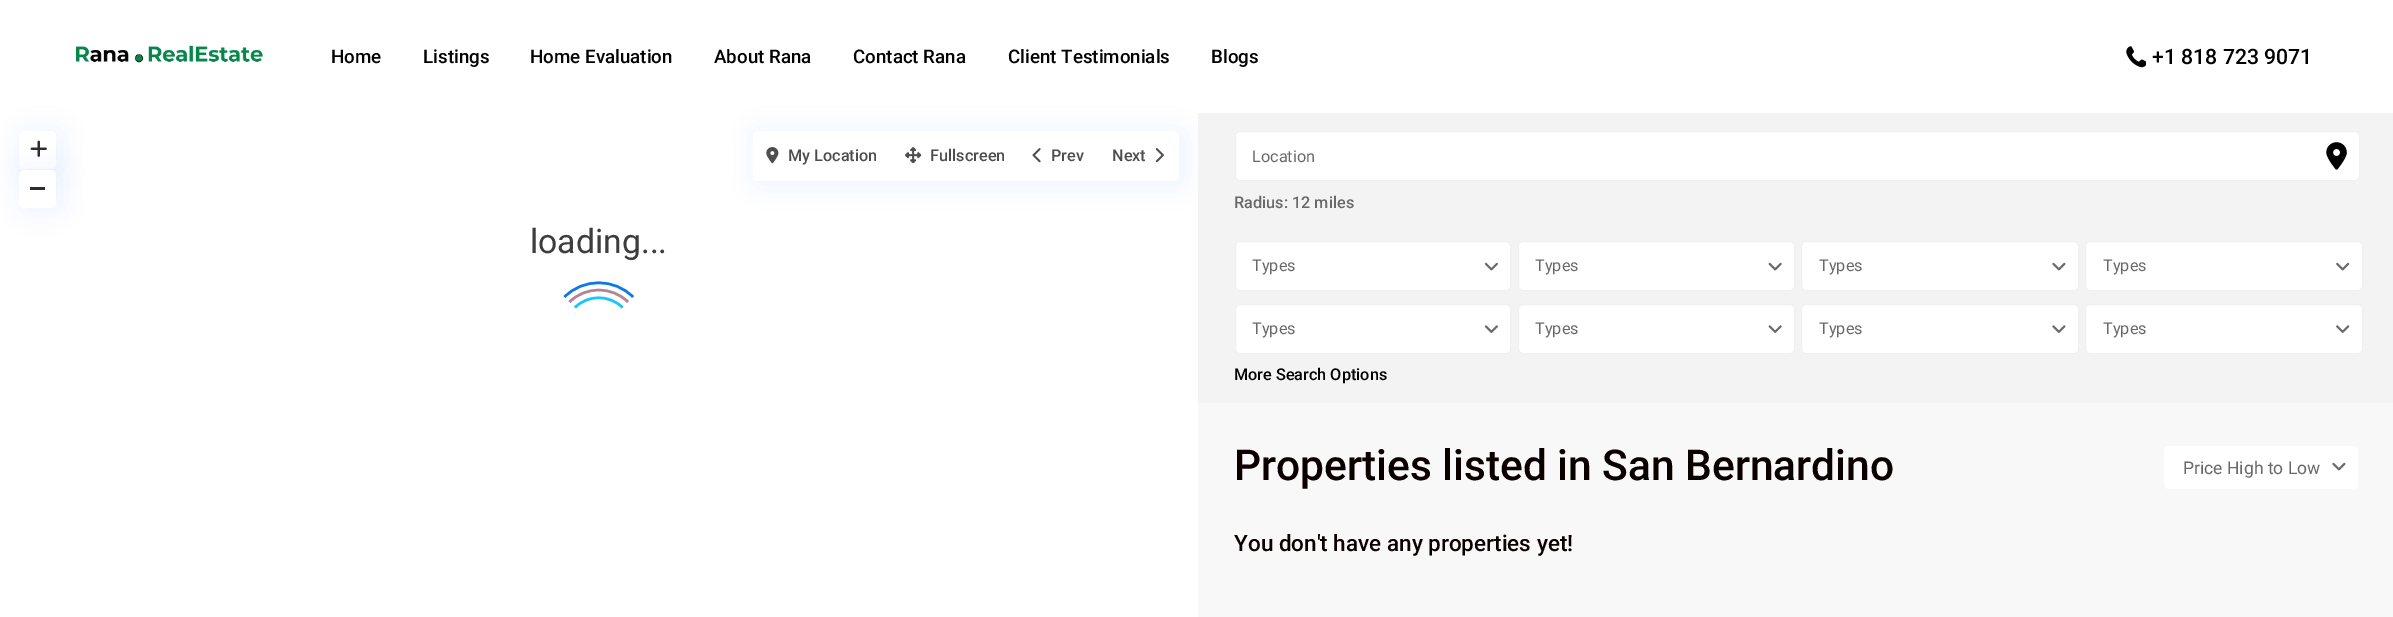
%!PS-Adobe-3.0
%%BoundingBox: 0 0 2393 617
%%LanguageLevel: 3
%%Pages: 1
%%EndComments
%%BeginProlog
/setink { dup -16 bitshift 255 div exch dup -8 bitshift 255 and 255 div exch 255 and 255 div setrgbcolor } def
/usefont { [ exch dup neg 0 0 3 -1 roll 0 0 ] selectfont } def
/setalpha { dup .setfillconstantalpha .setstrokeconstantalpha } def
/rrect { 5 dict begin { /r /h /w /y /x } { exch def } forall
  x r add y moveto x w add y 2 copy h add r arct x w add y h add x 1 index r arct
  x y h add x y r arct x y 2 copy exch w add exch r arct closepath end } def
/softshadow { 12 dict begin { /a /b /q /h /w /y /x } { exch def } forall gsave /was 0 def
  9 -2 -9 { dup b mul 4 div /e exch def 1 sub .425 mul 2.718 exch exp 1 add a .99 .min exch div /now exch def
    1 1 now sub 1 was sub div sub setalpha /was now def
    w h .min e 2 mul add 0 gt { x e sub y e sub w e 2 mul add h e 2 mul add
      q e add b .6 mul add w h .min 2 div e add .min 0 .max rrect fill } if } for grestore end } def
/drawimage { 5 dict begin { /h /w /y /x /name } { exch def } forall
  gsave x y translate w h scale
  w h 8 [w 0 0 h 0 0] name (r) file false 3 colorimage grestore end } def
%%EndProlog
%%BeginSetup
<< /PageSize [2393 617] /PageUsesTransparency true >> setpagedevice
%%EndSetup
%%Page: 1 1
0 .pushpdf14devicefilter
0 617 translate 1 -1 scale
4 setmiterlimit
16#FFFFFF setink
0 0 2393 617 rectfill
(img1.raw) 76 45 187 18 drawimage
/Roboto-Medium 18.75 usefont
16#000000 setink
[
    [(Home) 331 63]
    [(Listings) 423 63]
    [(Home Evaluation) 530 63]
    [(About Rana) 714 63]
    [(Contact Rana) 853 63]
    [(Client Testimonials) 1008 63]
    [(Blogs) 1211 63]
] { aload pop moveto show } forall
(img2.raw) 2126 46 20 22 drawimage
/Roboto-Medium 21.25 usefont
2152 64 moveto (+1 818 723 9071) show
16#006EE1 setink
23 133 37 37 5 12.5 0.08 softshadow
16#FFFFFF setink
19 131 37 38 5 rrect fill
(img3.raw) 30 140 17 17 drawimage
gsave
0 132 moveto 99 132 lineto 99 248 lineto 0 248 lineto closepath 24 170 moveto 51 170 lineto 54 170 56 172 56 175 curveto 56 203 lineto 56 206 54 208 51 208 curveto 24 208 lineto 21 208 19 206 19 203 curveto 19 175 lineto 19 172 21 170 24 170 curveto closepath eoclip newpath
16#006EE1 setink
23 171 37 38 5 12.5 0.08 softshadow
grestore
0.95 setalpha
19 170 37 38 5 rrect fill
1 setalpha
16#2D2D2D setink
30 187 15 3 rectfill
16#006EE1 setink
756 133 427 50 5 12.5 0.08 softshadow
16#FFFFFF setink
753 131 426 50 5 rrect fill
(img4.raw) 766 147 13 17 drawimage
/Roboto-Medium 16.25 usefont
16#4D4D4D setink
788 161 moveto (My Location) show
(img5.raw) 905 147 17 17 drawimage
930 161 moveto (Fullscreen) show
(img6.raw) 1032 148 9 15 drawimage
1051 161 moveto (Prev) show
1112 161 moveto (Next) show
(img7.raw) 1155 148 9 15 drawimage
/Roboto-Regular 33.75 usefont
16#3D3D3D setink
530 253 moveto (loading...) show
16#0D7AE3 setink
2.5 setlinewidth
564.5 297 moveto 583 278 614.5 278 633 297 curveto stroke
16#B48492 setink
569.5 302 moveto 585.5 286 612 286 628 302 curveto stroke
16#19C6F8 setink
575 307.5 moveto 588 294.5 609.5 294.5 622.5 307.5 curveto stroke
16#F8F8F8 setink
1198 403 1195 214 rectfill
16#F3F3F3 setink
1198 113 1195 290 rectfill
16#FFFFFF setink
1235.5 131.5 1124 49 4.5 rrect gsave fill grestore
16#F0F0F0 setink
1 setlinewidth
stroke
/Roboto-Regular 16.25 usefont
16#696969 setink
1252 162 moveto (Location) show
(img8.raw) 2326 142 21 28 drawimage
/Roboto-Medium 16.25 usefont
1234 208 moveto (Radius: 12 miles) show
16#FFFFFF setink
1235.5 241.5 275 49 4.5 rrect gsave fill grestore
16#F0F0F0 setink
stroke
/Roboto-Regular 16.25 usefont
16#696969 setink
1252 271 moveto (Types) show
(img9.raw) 1484 262 14 9 drawimage
16#FFFFFF setink
1518.5 241.5 276 49 4.5 rrect gsave fill grestore
16#F0F0F0 setink
stroke
16#696969 setink
1535 271 moveto (Types) show
(img10.raw) 1768 262 14 9 drawimage
16#FFFFFF setink
1801.5 241.5 277 49 4.5 rrect gsave fill grestore
16#F0F0F0 setink
stroke
16#696969 setink
1819 271 moveto (Types) show
(img11.raw) 2052 262 14 9 drawimage
16#FFFFFF setink
2085.5 241.5 277 49 4.5 rrect gsave fill grestore
16#F0F0F0 setink
stroke
16#696969 setink
2103 271 moveto (Types) show
(img12.raw) 2336 262 14 9 drawimage
16#FFFFFF setink
1235.5 304.5 275 49 4.5 rrect gsave fill grestore
16#F0F0F0 setink
stroke
16#696969 setink
1252 334 moveto (Types) show
(img13.raw) 1484 325 14 8 drawimage
16#FFFFFF setink
1518.5 304.5 276 49 4.5 rrect gsave fill grestore
16#F0F0F0 setink
stroke
16#696969 setink
1535 334 moveto (Types) show
(img14.raw) 1768 325 14 8 drawimage
16#FFFFFF setink
1801.5 304.5 277 49 4.5 rrect gsave fill grestore
16#F0F0F0 setink
stroke
16#696969 setink
1819 334 moveto (Types) show
(img15.raw) 2052 325 14 8 drawimage
16#FFFFFF setink
2085.5 304.5 277 49 4.5 rrect gsave fill grestore
16#F0F0F0 setink
stroke
16#696969 setink
2103 334 moveto (Types) show
(img16.raw) 2336 325 14 8 drawimage
/Roboto-Medium 16.25 usefont
16#000000 setink
1234 380 moveto (More Search Options) show
16#FFFFFF setink
2164 446 194 43 5 rrect fill
/Roboto-Regular 17.5 usefont
16#696969 setink
2183 474 moveto (Price High to Low) show
(img11.raw) 2332 462 14 9 drawimage
/Roboto-Medium 42.5 usefont
16#0A0000 setink
1234 480 moveto (Properties listed in San Bernardino) show
/Roboto-Medium 22.5 usefont
1234 551 moveto (You don't have any properties yet!) show
.poppdf14devicefilter showpage
%%EOF
